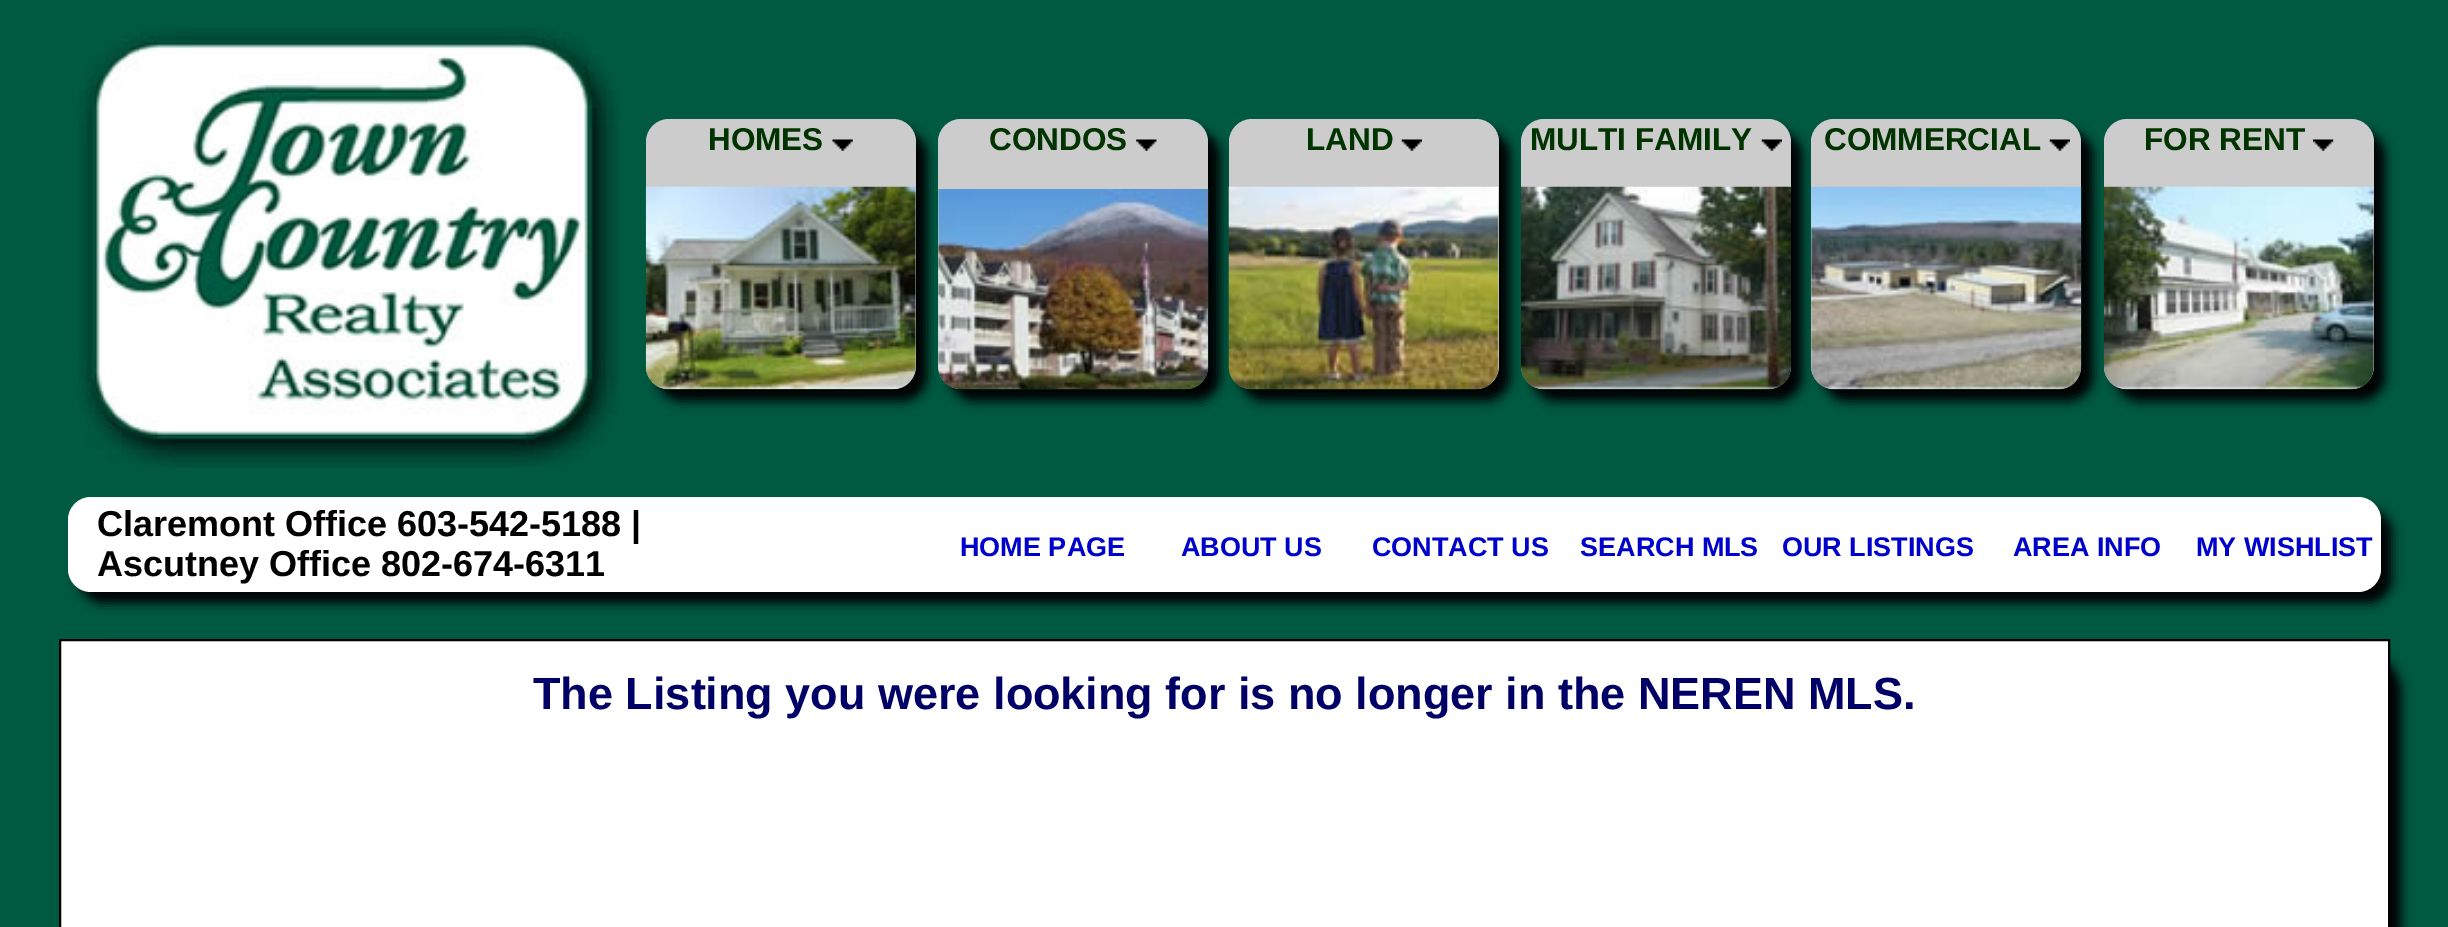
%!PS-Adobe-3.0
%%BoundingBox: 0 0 2448 927
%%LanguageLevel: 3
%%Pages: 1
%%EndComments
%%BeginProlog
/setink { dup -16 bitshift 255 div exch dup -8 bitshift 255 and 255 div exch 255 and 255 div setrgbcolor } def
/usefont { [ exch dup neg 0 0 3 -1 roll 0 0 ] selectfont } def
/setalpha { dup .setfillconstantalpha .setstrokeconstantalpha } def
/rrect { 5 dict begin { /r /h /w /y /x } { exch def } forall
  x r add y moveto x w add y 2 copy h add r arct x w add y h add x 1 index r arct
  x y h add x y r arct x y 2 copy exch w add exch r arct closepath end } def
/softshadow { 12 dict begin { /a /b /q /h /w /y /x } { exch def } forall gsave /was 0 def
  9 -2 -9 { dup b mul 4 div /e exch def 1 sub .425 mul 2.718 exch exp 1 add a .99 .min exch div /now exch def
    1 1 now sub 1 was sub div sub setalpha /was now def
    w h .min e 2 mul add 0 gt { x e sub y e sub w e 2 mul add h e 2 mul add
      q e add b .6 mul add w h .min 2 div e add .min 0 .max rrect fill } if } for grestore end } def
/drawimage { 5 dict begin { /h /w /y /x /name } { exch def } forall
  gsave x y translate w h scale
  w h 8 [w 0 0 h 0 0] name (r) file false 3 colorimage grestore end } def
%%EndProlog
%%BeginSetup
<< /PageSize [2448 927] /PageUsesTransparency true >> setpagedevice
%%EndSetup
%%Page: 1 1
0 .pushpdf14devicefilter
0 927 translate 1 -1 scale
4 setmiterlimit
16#005941 setink
0 0 2448 927 rectfill
(img1.raw) 78 28 541 440 drawimage
16#000000 setink
657 131 270 270 23 5.5 1 softshadow
16#CCCCCC setink
646 119 270 270 23 rrect fill
(img2.raw) 645 186 271 204 drawimage
/LiberationSans-Bold 31.5 usefont
16#003300 setink
708 150 moveto (HOMES) show
(img3.raw) 832 139 21 12 drawimage
16#000000 setink
950 131 270 270 23 5.5 1 softshadow
16#CCCCCC setink
938 119 270 270 23 rrect fill
(img4.raw) 938 189 271 201 drawimage
16#003300 setink
989 150 moveto (CONDOS) show
(img5.raw) 1136 139 21 12 drawimage
16#000000 setink
1240 131 270 270 23 5.5 1 softshadow
16#CCCCCC setink
1229 119 270 270 23 rrect fill
(img6.raw) 1228 186 271 204 drawimage
16#003300 setink
1306 150 moveto (LAND) show
(img7.raw) 1401 139 21 12 drawimage
16#000000 setink
1532 131 270 270 23 5.5 1 softshadow
16#CCCCCC setink
1521 119 270 270 23 rrect fill
(img8.raw) 1521 186 270 204 drawimage
16#003300 setink
1530 150 moveto (MULTI FAMILY) show
(img9.raw) 1761 139 21 12 drawimage
16#000000 setink
1823 131 270 270 23 5.5 1 softshadow
16#CCCCCC setink
1811 119 270 270 23 rrect fill
(img10.raw) 1811 186 271 204 drawimage
16#003300 setink
1824 150 moveto (COMMERCIAL) show
(img9.raw) 2049 139 21 12 drawimage
16#000000 setink
2115 131 270 270 23 5.5 1 softshadow
16#CCCCCC setink
2104 119 270 270 23 rrect fill
(img11.raw) 2103 186 271 204 drawimage
16#003300 setink
2144 150 moveto (FOR RENT) show
(img12.raw) 2313 139 21 12 drawimage
16#000000 setink
79 509 2313 94 23 5.5 1 softshadow
16#FFFFFF setink
68 497 2313 95 23 rrect fill
/LiberationSans-Bold 36 usefont
16#000000 setink
97 536 moveto (Claremont Office 603-542-5188 |) show
97 576 moveto (Ascutney Office 802-674-6311) show
/LiberationSans-Bold 27 usefont
16#0000CC setink
[
    [(HOME PAGE) 960 556]
    [(ABOUT US) 1181 556]
    [(CONTACT US) 1372 556]
    [(SEARCH MLS) 1580 556]
    [(OUR LISTINGS) 1782 556]
    [(AREA INFO) 2013 556]
    [(MY WISHLIST) 2196 556]
] { aload pop moveto show } forall
16#000000 setink
70 650 2331 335 41 5.5 1 softshadow
16#FFFFFF setink
60 640 moveto 2389 640 lineto 2389 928 lineto 60 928 lineto closepath gsave fill grestore
16#000000 setink
2 setlinewidth
stroke
/LiberationSans-Bold 45 usefont
16#000066 setink
533 709 moveto (The Listing you were looking for is no longer in the NEREN MLS.) show
.poppdf14devicefilter showpage
%%EOF
